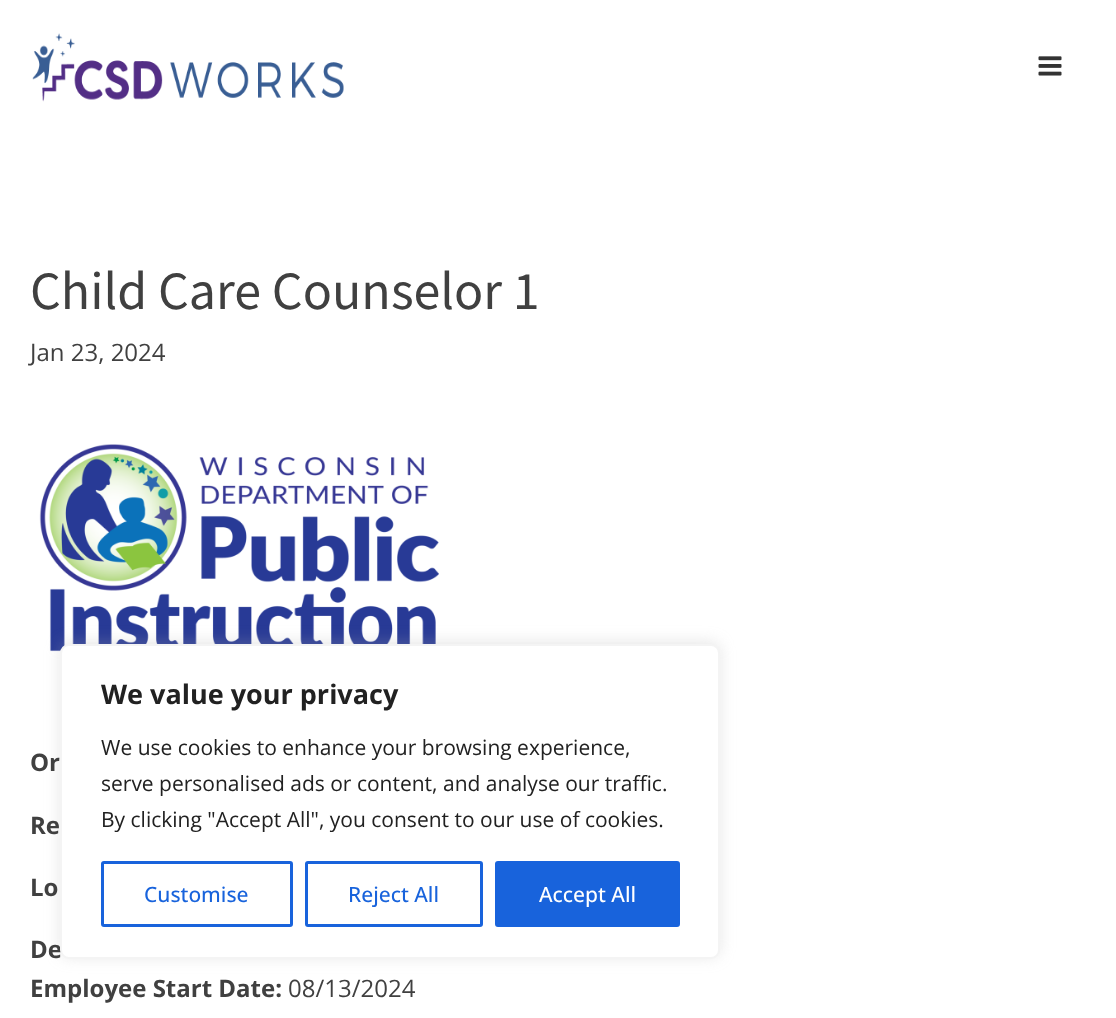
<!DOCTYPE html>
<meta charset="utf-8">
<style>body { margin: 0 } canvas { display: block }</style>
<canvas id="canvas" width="1116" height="1018"></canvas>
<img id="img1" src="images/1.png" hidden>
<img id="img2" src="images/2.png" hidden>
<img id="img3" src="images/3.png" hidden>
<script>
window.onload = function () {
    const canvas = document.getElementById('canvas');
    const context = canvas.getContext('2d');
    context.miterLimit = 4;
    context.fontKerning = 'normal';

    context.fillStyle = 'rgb(255, 255, 255)';
    context.fillRect(0, 0, 1116, 1018);
    context.drawImage(document.getElementById('img1'), 32, 33, 312, 69);
    context.drawImage(document.getElementById('img2'), 1038, 56, 24, 20);
    context.drawImage(document.getElementById('img3'), 39, 444, 400, 208);
    context.fillStyle = 'rgba(172, 171, 171, 0.3)';
    context.filter = 'blur(7.5px)';
    context.beginPath();
    context.roundRect(60, 642, 660, 315, 9);
    context.fill();
    context.filter = 'none';
    context.font = '54px Source Sans Pro';
    context.fillStyle = 'rgb(64, 64, 64)';
    context.fillText('Child Care Counselor 1', 30, 309);
    context.font = '24px Open Sans';
    context.fillText('Jan 23, 2024', 30, 361);
    context.font = 'bold 24px Open Sans';
    context.fillText('Or', 30, 771);
    context.fillText('Re', 30, 834);
    context.fillText('Lo', 30, 896);
    context.fillText('De', 30, 958);
    context.fillText('Employee Start Date:', 30, 997);
    context.font = '24px Open Sans';
    context.fillText('08/13/2024', 288, 997);
    context.fillStyle = 'rgb(255, 255, 255)';
    context.beginPath();
    context.roundRect(61, 645, 658, 313, 8);
    context.fill();
    context.strokeStyle = 'rgb(244, 244, 244)';
    context.lineWidth = 2;
    context.stroke();
    context.font = 'bold 27px Open Sans';
    context.fillStyle = 'rgb(33, 33, 33)';
    context.fillText('We value your privacy', 101, 704);
    context.font = '21px Open Sans';
    context.fillText('We use cookies to enhance your browsing experience,', 101, 755);
    context.fillText('serve personalised ads or content, and analyse our traffic.', 101, 791);
    context.fillText('By clicking "Accept All", you consent to our use of cookies.', 101, 827);
    context.beginPath();
    context.roundRect(102.5, 862.5, 189, 63, 1.5);
    context.strokeStyle = 'rgb(24, 99, 220)';
    context.lineWidth = 3;
    context.stroke();
    context.font = '500 21px Open Sans';
    context.fillStyle = 'rgb(24, 99, 220)';
    context.fillText('Customise', 144, 902);
    context.beginPath();
    context.roundRect(306.5, 862.5, 175, 63, 1.5);
    context.stroke();
    context.fillText('Reject All', 348, 902);
    context.beginPath();
    context.roundRect(496.5, 862.5, 182, 63, 1.5);
    context.fill();
    context.stroke();
    context.fillStyle = 'rgb(255, 255, 255)';
    context.fillText('Accept All', 539, 902);
};
</script>
